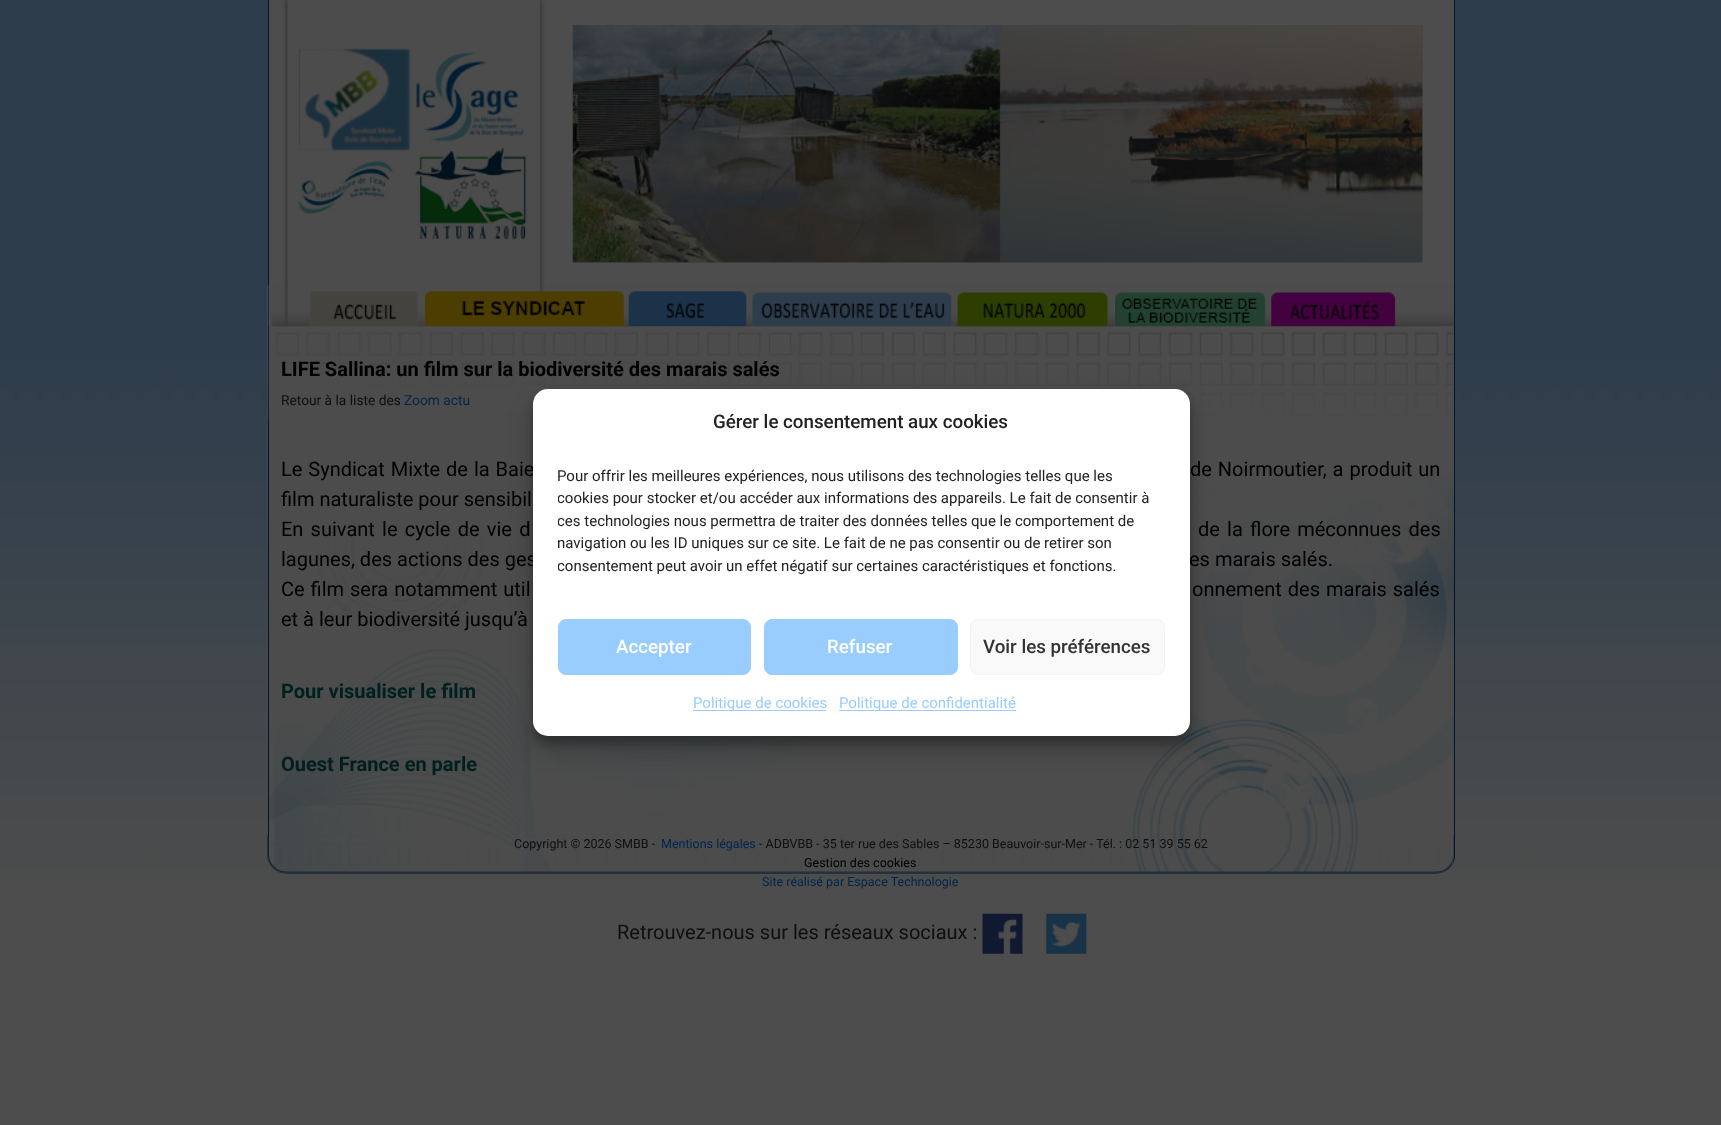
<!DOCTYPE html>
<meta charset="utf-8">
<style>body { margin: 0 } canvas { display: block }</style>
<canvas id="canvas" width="1721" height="1125"></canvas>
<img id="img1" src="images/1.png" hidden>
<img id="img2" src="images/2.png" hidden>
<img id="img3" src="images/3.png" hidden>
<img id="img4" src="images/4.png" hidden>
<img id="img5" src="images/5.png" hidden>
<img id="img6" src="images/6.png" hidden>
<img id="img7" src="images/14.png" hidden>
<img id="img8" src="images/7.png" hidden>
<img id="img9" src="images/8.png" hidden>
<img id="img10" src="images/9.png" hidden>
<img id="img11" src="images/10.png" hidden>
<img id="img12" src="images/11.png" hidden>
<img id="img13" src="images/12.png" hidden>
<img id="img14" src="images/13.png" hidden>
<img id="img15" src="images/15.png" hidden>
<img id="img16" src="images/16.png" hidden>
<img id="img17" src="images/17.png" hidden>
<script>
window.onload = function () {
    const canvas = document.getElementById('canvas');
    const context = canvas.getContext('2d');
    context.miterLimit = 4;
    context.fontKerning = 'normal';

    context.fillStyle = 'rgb(77, 77, 77)';
    context.fillRect(0, 0, 1721, 1125);
    context.drawImage(document.getElementById('img1'), 0, 0, 1721, 880);
    context.fillRect(269, 0, 1185, 285);
    context.drawImage(document.getElementById('img2'), 282, 0, 263, 285);
    context.fillStyle = 'rgb(0, 21, 41)';
    context.fillRect(1454, 0, 1, 835);
    context.fillRect(268, 0, 1, 285);
    context.drawImage(document.getElementById('img3'), 297, 45, 231, 200);
    context.fillStyle = 'rgb(69, 69, 69)';
    context.fillRect(573, 25, 850, 238);
    context.drawImage(document.getElementById('img4'), 572, 25, 851, 238);
    context.drawImage(document.getElementById('img5'), 267, 285, 1187, 550);
    context.fillStyle = 'rgb(0, 21, 41)';
    context.fillRect(268, 285, 1, 550);
    context.drawImage(document.getElementById('img6'), 268, 285, 1186, 42);
    context.drawImage(document.getElementById('img7'), 268, 326, 1186, 94);
    context.drawImage(document.getElementById('img8'), 268, 285, 153, 42);
    context.drawImage(document.getElementById('img9'), 421, 285, 208, 42);
    context.drawImage(document.getElementById('img10'), 628, 291, 125, 36);
    context.drawImage(document.getElementById('img11'), 752, 292, 206, 35);
    context.drawImage(document.getElementById('img12'), 957, 292, 158, 35);
    context.drawImage(document.getElementById('img13'), 1115, 292, 156, 35);
    context.drawImage(document.getElementById('img14'), 1271, 292, 170, 35);
    context.drawImage(document.getElementById('img15'), 267, 835, 1188, 39);
    context.drawImage(document.getElementById('img16'), 982, 913, 41, 41);
    context.drawImage(document.getElementById('img17'), 1046, 913, 41, 41);
    context.fillStyle = 'rgba(0, 0, 0, 0.23)';
    context.filter = 'blur(4px)';
    context.beginPath();
    context.roundRect(533, 396, 657, 348, 15);
    context.fill();
    context.filter = 'none';
    context.fillStyle = 'rgba(0, 0, 0, 0.19)';
    context.filter = 'blur(12.5px)';
    context.beginPath();
    context.roundRect(533, 401, 657, 348, 15);
    context.fill();
    context.filter = 'none';
    context.font = 'bold 20px Roboto';
    context.fillStyle = 'rgb(0, 0, 0)';
    context.fillText('LIFE Sallina: un film sur la biodiversité des marais salés', 281, 376);
    context.font = '13.75px Roboto';
    context.fillStyle = 'rgb(15, 15, 15)';
    context.fillText('Retour à la liste des', 281, 405);
    context.fillStyle = 'rgb(0, 37, 77)';
    context.fillText('Zoom actu', 404, 405);
    context.wordSpacing = '1px';
    context.font = '20px Roboto';
    context.fillStyle = 'rgb(0, 0, 0)';
    context.fillText('Le Syndicat Mixte de la Baie', 281, 476);
    context.fillText('de Noirmoutier, a produit un', 1190, 476);
    context.wordSpacing = '0px';
    context.fillText('film naturaliste pour sensibil', 281, 506);
    context.wordSpacing = '2.25px';
    context.fillText('En suivant le cycle de vie d', 281, 536);
    context.fillText('de la flore méconnues des', 1198, 536);
    context.wordSpacing = '0px';
    context.fillText('lagunes, des actions des ges', 281, 566);
    context.fillText('es marais salés.', 1189, 566);
    context.wordSpacing = '1px';
    context.fillText('Ce film sera notamment util', 281, 596);
    context.fillText('onnement des marais salés', 1192, 596);
    context.wordSpacing = '0px';
    context.fillText('et à leur biodiversité jusqu’à', 281, 626);
    context.font = 'bold 20px Roboto';
    context.fillStyle = 'rgb(0, 31, 31)';
    context.fillText('Pour visualiser le film', 281, 698);
    context.fillText('Ouest France en parle', 281, 771);
    context.font = '12.5px Roboto';
    context.fillStyle = 'rgb(15, 15, 15)';
    context.fillText('Copyright © 2026 SMBB -', 514, 848);
    context.fillStyle = 'rgb(0, 37, 77)';
    context.fillText('Mentions légales', 661, 848);
    context.fillStyle = 'rgb(15, 15, 15)';
    context.fillText('- ADBVBB - 35 ter rue des Sables – 85230 Beauvoir-sur-Mer - Tél. : 02 51 39 55 62', 759, 848);
    context.fillStyle = 'rgb(0, 0, 0)';
    context.fillText('Gestion des cookies', 804, 867);
    context.fillStyle = 'rgb(0, 37, 77)';
    context.fillText('Site réalisé par Espace Technologie', 762, 886);
    context.font = '20px Roboto';
    context.fillStyle = 'rgb(15, 15, 15)';
    context.fillText('Retrouvez-nous sur les réseaux sociaux :', 617, 939);
    context.fillStyle = 'rgb(255, 255, 255)';
    context.beginPath();
    context.roundRect(533, 389, 657, 347, 15);
    context.fill();
    context.font = '500 18.75px Roboto';
    context.fillStyle = 'rgb(34, 34, 34)';
    context.fillText('Gérer le consentement aux cookies', 713, 428);
    context.font = '15px Roboto';
    context.fillText('Pour offrir les meilleures expériences, nous utilisons des technologies telles que les', 557, 481);
    context.save();
    context.beginPath();
    context.rect(558, 465, 607, 119);
    context.clip();
    context.fillText('cookies pour stocker et/ou accéder aux informations des appareils. Le fait de consentir à', 557, 503);
    context.fillText('ces technologies nous permettra de traiter des données telles que le comportement de', 557, 526);
    context.fillText('navigation ou les ID uniques sur ce site. Le fait de ne pas consentir ou de retirer son', 557, 548);
    context.fillText('consentement peut avoir un effet négatif sur certaines caractéristiques et fonctions.', 557, 571);
    context.restore();
    context.fillStyle = 'rgb(153, 204, 255)';
    context.beginPath();
    context.roundRect(558.5, 619.5, 192, 55, 7.5);
    context.fill();
    context.strokeStyle = 'rgb(153, 204, 255)';
    context.stroke();
    context.font = '500 18.75px Roboto';
    context.fillStyle = 'rgb(255, 255, 255)';
    context.fillText('Accepter', 616, 653);
    context.fillStyle = 'rgb(153, 204, 255)';
    context.beginPath();
    context.roundRect(764.5, 619.5, 193, 55, 7.5);
    context.fill();
    context.stroke();
    context.fillStyle = 'rgb(255, 255, 255)';
    context.fillText('Refuser', 827, 653);
    context.fillStyle = 'rgb(249, 249, 249)';
    context.beginPath();
    context.roundRect(970.5, 619.5, 194, 55, 7.5);
    context.fill();
    context.strokeStyle = 'rgb(242, 242, 242)';
    context.stroke();
    context.fillStyle = 'rgb(51, 51, 51)';
    context.fillText('Voir les préférences', 983, 653);
    context.fillStyle = 'rgb(153, 204, 255)';
    context.fillRect(693, 710, 133, 1);
    context.font = '15px Roboto';
    context.fillText('Politique de cookies', 693, 708);
    context.fillRect(839, 710, 177, 1);
    context.fillText('Politique de confidentialité', 839, 708);
};
</script>
